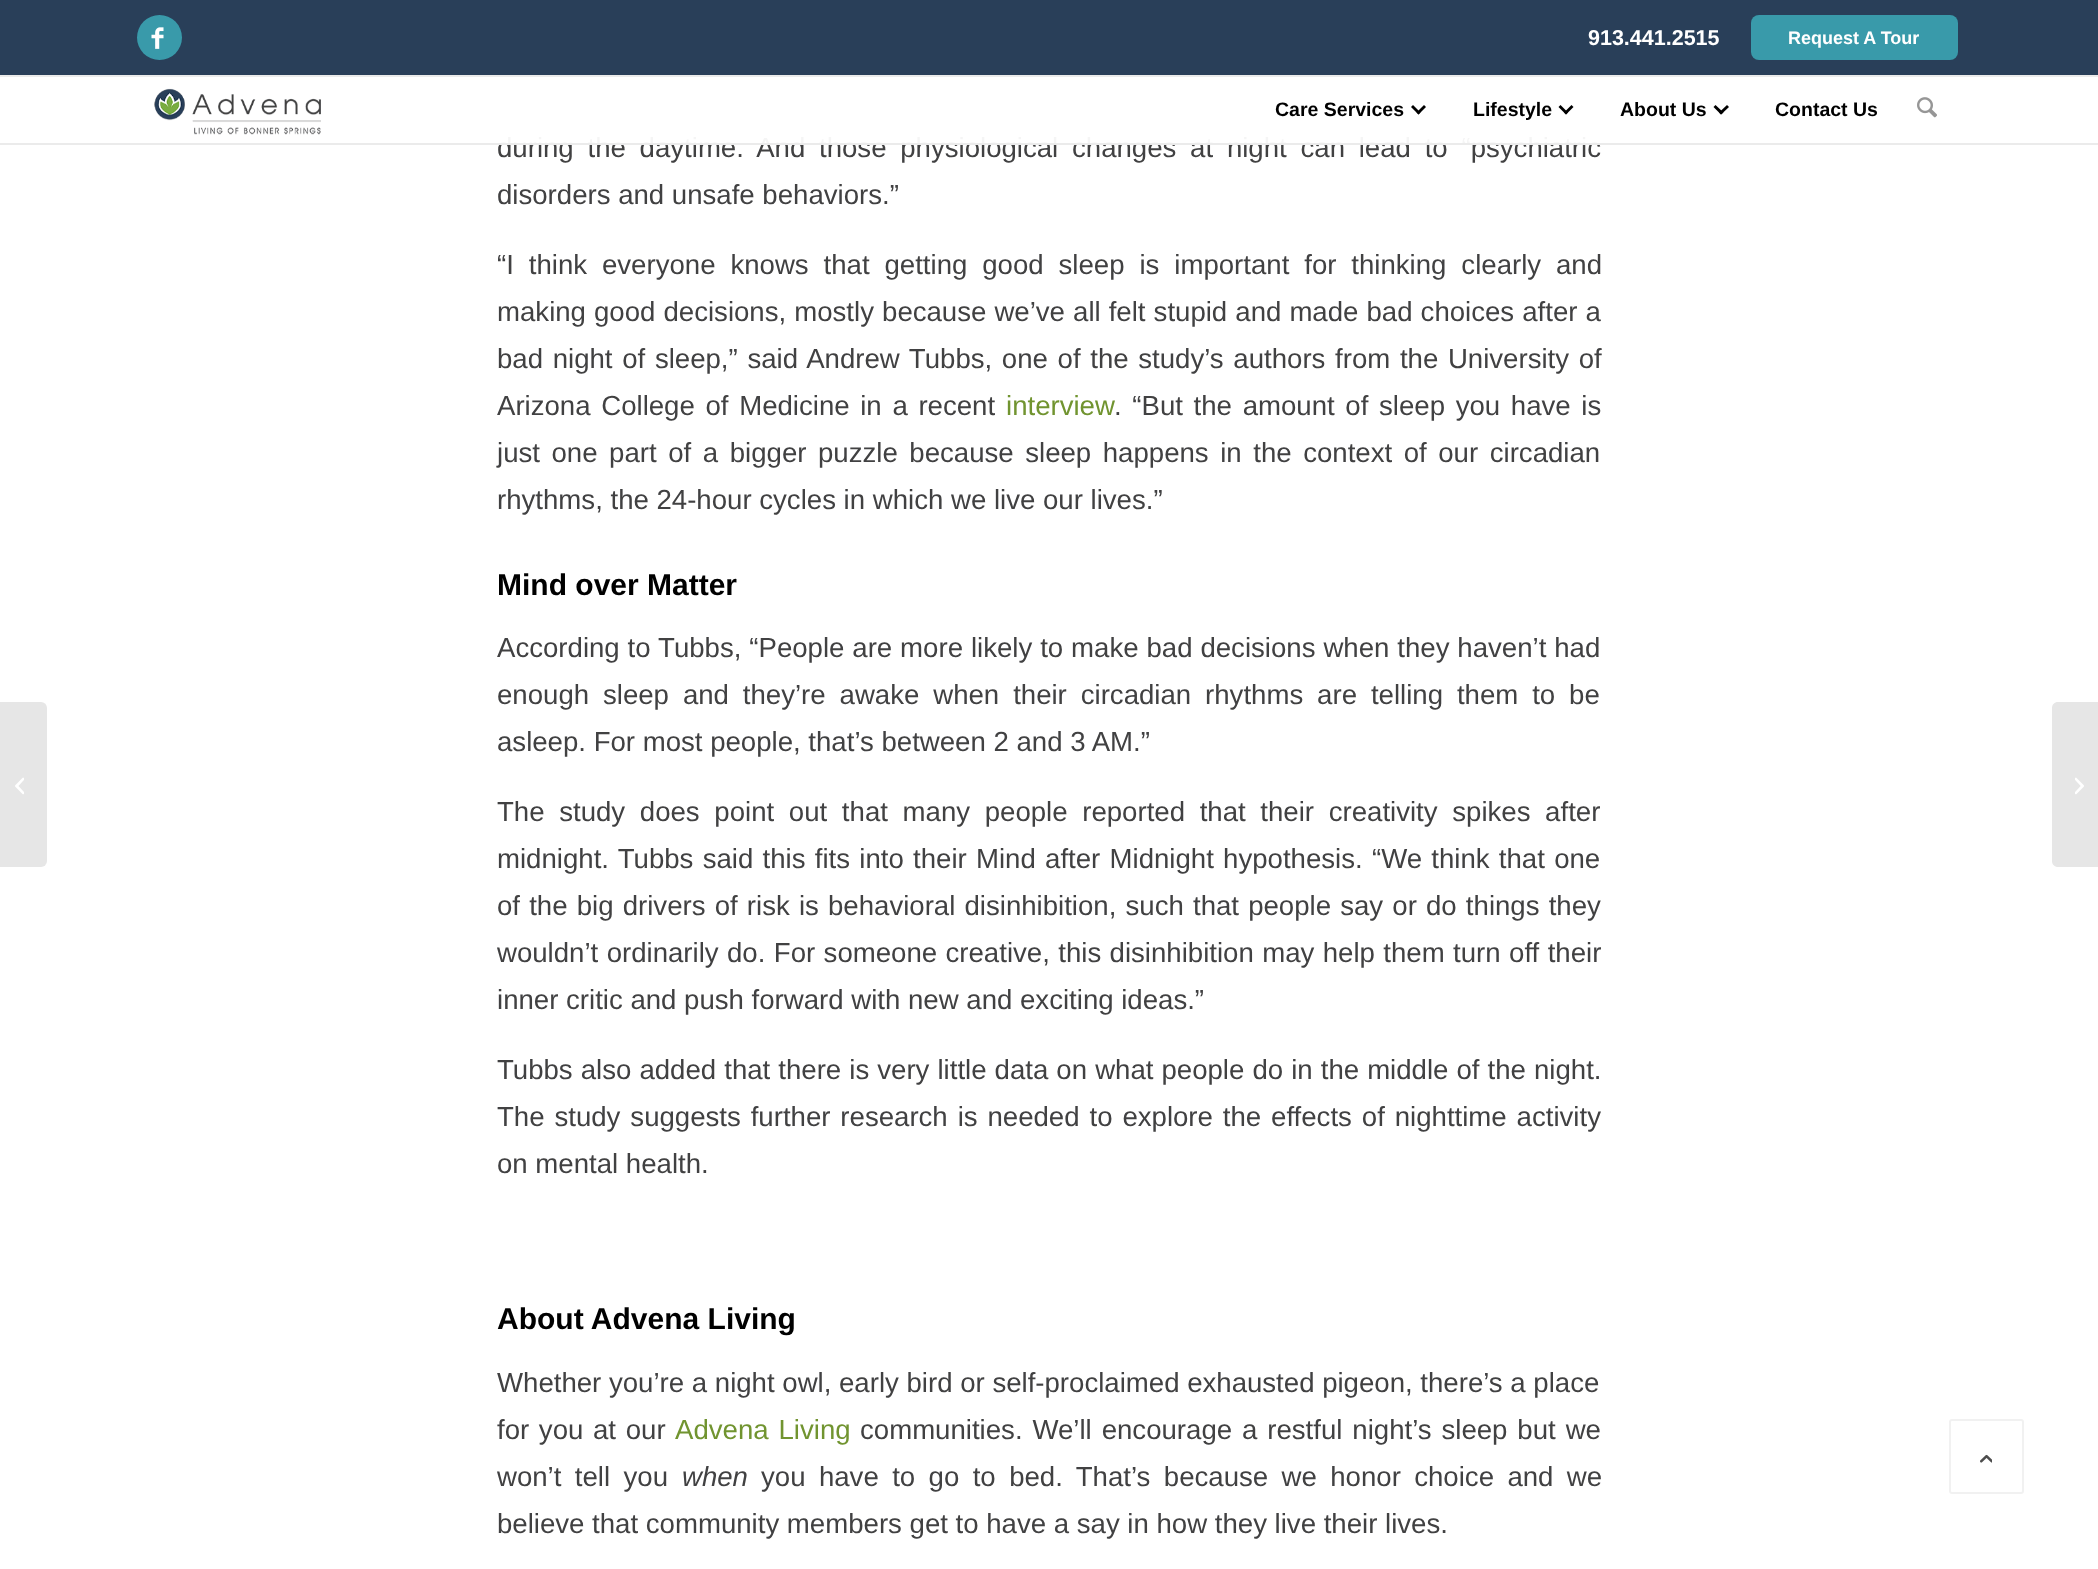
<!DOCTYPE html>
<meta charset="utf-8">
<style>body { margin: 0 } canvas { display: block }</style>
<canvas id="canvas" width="2098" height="1569"></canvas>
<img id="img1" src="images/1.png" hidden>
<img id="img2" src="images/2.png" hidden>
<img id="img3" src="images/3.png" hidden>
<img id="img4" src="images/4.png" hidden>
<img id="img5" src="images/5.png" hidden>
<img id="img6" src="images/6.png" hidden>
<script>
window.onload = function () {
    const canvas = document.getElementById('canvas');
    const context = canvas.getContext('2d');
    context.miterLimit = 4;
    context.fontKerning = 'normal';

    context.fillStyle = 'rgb(255, 255, 255)';
    context.fillRect(0, 0, 2098, 1569);
    context.fillStyle = 'rgb(41, 63, 89)';
    context.fillRect(0, 0, 2098, 75);
    context.fillStyle = 'rgb(235, 235, 235)';
    context.fillRect(0, 75, 2098, 2);
    context.fillStyle = 'rgb(57, 154, 170)';
    context.beginPath();
    context.arc(159.5, 37.5, 22.5, 0, 2 * Math.PI);
    context.fill();
    context.drawImage(document.getElementById('img1'), 151, 27, 13, 22);
    context.beginPath();
    context.roundRect(1751, 15, 207, 45, 8);
    context.fill();
    context.drawImage(document.getElementById('img2'), 154, 88, 167, 47);
    context.fillStyle = 'rgb(0, 0, 0)';
    context.beginPath();
    context.moveTo(1426, 107);
    context.lineTo(1418.5, 114.5);
    context.lineTo(1416.5, 112.5);
    context.lineTo(1424, 105);
    context.closePath();
    context.fill();
    context.beginPath();
    context.moveTo(1420.5, 112.5);
    context.lineTo(1418.5, 114.5);
    context.lineTo(1411, 107);
    context.lineTo(1413, 105);
    context.closePath();
    context.fill();
    context.beginPath();
    context.moveTo(1573.5, 107);
    context.lineTo(1566, 114.5);
    context.lineTo(1564, 112.5);
    context.lineTo(1571.5, 105);
    context.closePath();
    context.fill();
    context.beginPath();
    context.moveTo(1568, 112.5);
    context.lineTo(1566, 114.5);
    context.lineTo(1558.5, 107);
    context.lineTo(1560.5, 105);
    context.closePath();
    context.fill();
    context.beginPath();
    context.moveTo(1729, 107);
    context.lineTo(1721, 114.5);
    context.lineTo(1719, 112.5);
    context.lineTo(1727, 105);
    context.closePath();
    context.fill();
    context.beginPath();
    context.moveTo(1723.5, 112.5);
    context.lineTo(1721, 114.5);
    context.lineTo(1713.5, 107);
    context.lineTo(1715.5, 105);
    context.closePath();
    context.fill();
    context.drawImage(document.getElementById('img3'), 1917, 97, 20, 21);
    context.fillStyle = 'rgb(230, 230, 230)';
    context.beginPath();
    context.roundRect(0, 702, 47, 165, [0, 6, 6, 0]);
    context.fill();
    context.drawImage(document.getElementById('img4'), 15, 777, 9, 18);
    context.beginPath();
    context.moveTo(2058, 702);
    context.lineTo(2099, 702);
    context.lineTo(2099, 867);
    context.lineTo(2058, 867);
    context.bezierCurveTo(2054.5, 867, 2052, 864.5, 2052, 861);
    context.lineTo(2052, 708);
    context.bezierCurveTo(2052, 704.5, 2054.5, 702, 2058, 702);
    context.closePath();
    context.fill();
    context.drawImage(document.getElementById('img5'), 2075, 777, 9, 18);
    context.beginPath();
    context.roundRect(1950, 1420, 73, 73, 2);
    context.strokeStyle = 'rgb(241, 241, 241)';
    context.lineWidth = 2;
    context.stroke();
    context.drawImage(document.getElementById('img6'), 1980, 1454, 12, 9);
    context.font = 'bold 21.5px Liberation Sans';
    context.fillStyle = 'rgb(255, 255, 255)';
    context.fillText('913.441.2515', 1588, 45);
    context.font = 'bold 18px Liberation Sans';
    context.fillText('Request A Tour', 1788, 44);
    context.font = 'bold 19.5px Liberation Sans';
    context.fillStyle = 'rgb(0, 0, 0)';
    context.fillText('Care Services', 1275, 116);
    context.fillText('Lifestyle', 1473, 116);
    context.fillText('About Us', 1620, 116);
    context.fillText('Contact Us', 1775, 116);
    context.wordSpacing = '6.1px';
    context.font = '27.6px Liberation Sans';
    context.fillStyle = 'rgb(65, 65, 66)';
    context.fillText('during the daytime. And those physiological changes at night can lead to “psychiatric', 497, 157);
    context.fillStyle = 'rgb(235, 235, 235)';
    context.fillRect(0, 143, 2098, 2);
    context.fillStyle = 'rgba(255, 255, 255, 0.95)';
    context.fillRect(501, 137, 1097, 6);
    context.wordSpacing = '0px';
    context.fillStyle = 'rgb(65, 65, 66)';
    context.fillText('disorders and unsafe behaviors.”', 497, 204);
    context.wordSpacing = '7.25px';
    context.fillText('“I think everyone knows that getting good sleep is important for thinking clearly and', 497, 274);
    context.wordSpacing = '0.4px';
    context.fillText('making good decisions, mostly because we’ve all felt stupid and made bad choices after a', 497, 321);
    context.wordSpacing = '2px';
    context.fillText('bad night of sleep,” said Andrew Tubbs, one of the study’s authors from the University of', 497, 368);
    context.wordSpacing = '3px';
    context.fillText('Arizona College of Medicine in a recent', 497, 415);
    context.wordSpacing = '0px';
    context.fillStyle = 'rgb(113, 148, 48)';
    context.fillText('interview', 1006, 415);
    context.wordSpacing = '3px';
    context.fillStyle = 'rgb(65, 65, 66)';
    context.fillText('. “But the amount of sleep you have is', 1114, 415);
    context.wordSpacing = '3.9px';
    context.fillText('just one part of a bigger puzzle because sleep happens in the context of our circadian', 497, 462);
    context.wordSpacing = '0px';
    context.fillText('rhythms, the 24-hour cycles in which we live our lives.”', 497, 509);
    context.font = 'bold 30px Liberation Sans';
    context.fillStyle = 'rgb(0, 0, 0)';
    context.fillText('Mind over Matter', 497, 595);
    context.wordSpacing = '0.25px';
    context.font = '27.6px Liberation Sans';
    context.fillStyle = 'rgb(65, 65, 66)';
    context.fillText('According to Tubbs, “People are more likely to make bad decisions when they haven’t had', 497, 657);
    context.wordSpacing = '6.25px';
    context.fillText('enough sleep and they’re awake when their circadian rhythms are telling them to be', 497, 704);
    context.wordSpacing = '0px';
    context.fillText('asleep. For most people, that’s between 2 and 3 AM.”', 497, 751);
    context.wordSpacing = '7px';
    context.fillText('The study does point out that many people reported that their creativity spikes after', 497, 821);
    context.wordSpacing = '1.6px';
    context.fillText('midnight. Tubbs said this fits into their Mind after Midnight hypothesis. “We think that one', 497, 868);
    context.wordSpacing = '1.5px';
    context.fillText('of the big drivers of risk is behavioral disinhibition, such that people say or do things they', 497, 915);
    context.wordSpacing = '0.75px';
    context.fillText('wouldn’t ordinarily do. For someone creative, this disinhibition may help them turn off their', 497, 962);
    context.wordSpacing = '0px';
    context.fillText('inner critic and push forward with new and exciting ideas.”', 497, 1009);
    context.wordSpacing = '0.4px';
    context.fillText('Tubbs also added that there is very little data on what people do in the middle of the night.', 497, 1079);
    context.wordSpacing = '2.25px';
    context.fillText('The study suggests further research is needed to explore the effects of nighttime activity', 497, 1126);
    context.wordSpacing = '0px';
    context.fillText('on mental health.', 497, 1173);
    context.font = 'bold 30px Liberation Sans';
    context.fillStyle = 'rgb(0, 0, 0)';
    context.fillText('About Advena Living', 497, 1329);
    context.font = '27.6px Liberation Sans';
    context.fillStyle = 'rgb(65, 65, 66)';
    context.fillText('Whether you’re a night owl, early bird or self-proclaimed exhausted pigeon, there’s a place', 497, 1392);
    context.wordSpacing = '2px';
    context.fillText('for you at our', 497, 1439);
    context.wordSpacing = '2.25px';
    context.fillStyle = 'rgb(113, 148, 48)';
    context.fillText('Advena Living', 675, 1439);
    context.fillStyle = 'rgb(65, 65, 66)';
    context.fillText('communities. We’ll encourage a restful night’s sleep but we', 860, 1439);
    context.wordSpacing = '5.75px';
    context.fillText('won’t tell you', 497, 1486);
    context.wordSpacing = '0px';
    context.font = 'italic 27.6px Liberation Sans';
    context.fillText('when', 682, 1486);
    context.wordSpacing = '5.75px';
    context.font = '27.6px Liberation Sans';
    context.fillText('you have to go to bed. That’s because we honor choice and we', 761, 1486);
    context.wordSpacing = '0px';
    context.fillText('believe that community members get to have a say in how they live their lives.', 497, 1533);
};
</script>
